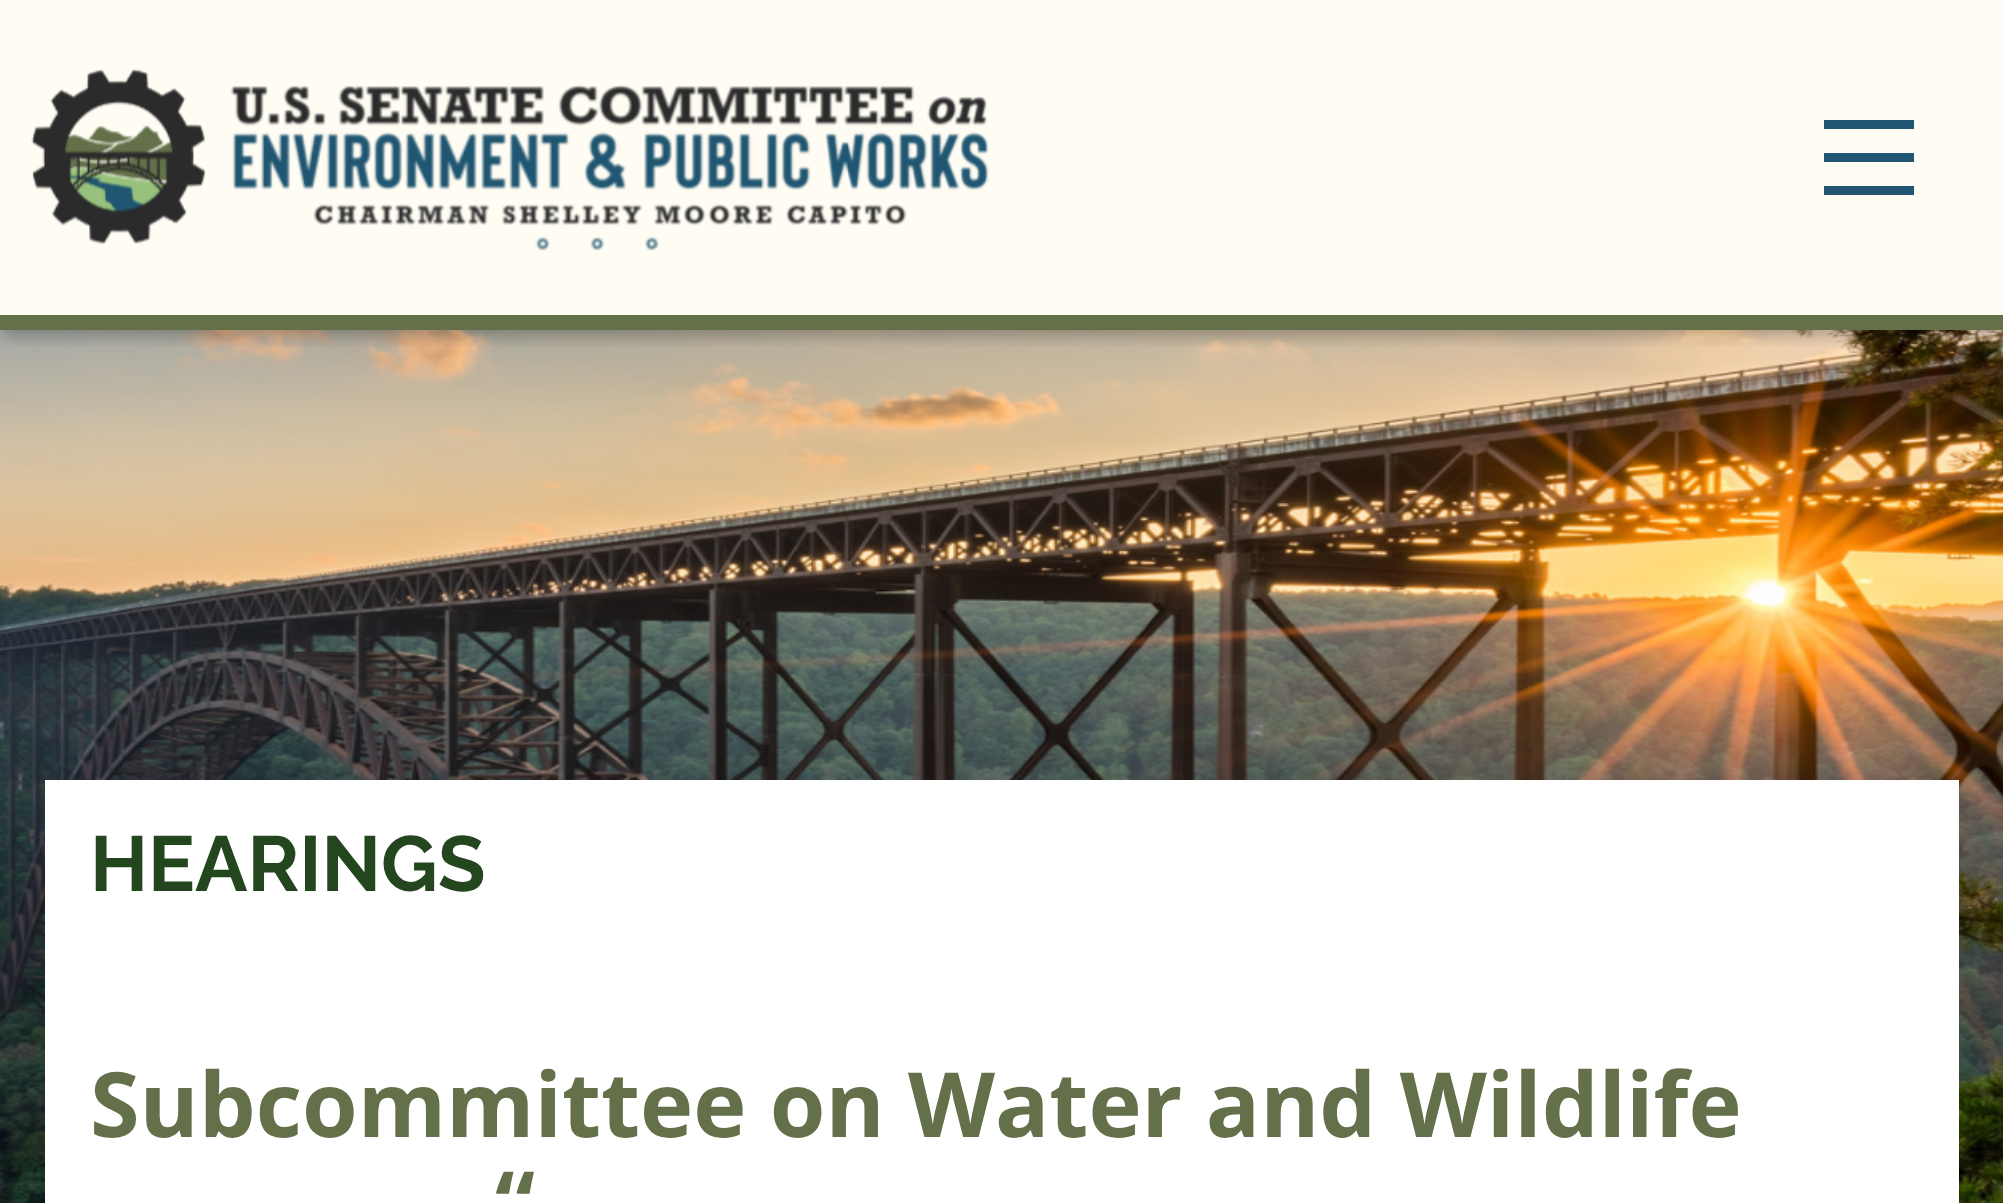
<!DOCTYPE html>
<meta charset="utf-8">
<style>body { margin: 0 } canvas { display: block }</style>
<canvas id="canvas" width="2003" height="1203"></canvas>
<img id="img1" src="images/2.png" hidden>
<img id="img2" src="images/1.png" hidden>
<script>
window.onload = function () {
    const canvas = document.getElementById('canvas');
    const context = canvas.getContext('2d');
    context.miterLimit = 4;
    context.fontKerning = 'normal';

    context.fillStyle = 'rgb(255, 252, 243)';
    context.fillRect(0, 0, 2003, 1203);
    context.drawImage(document.getElementById('img1'), 0, 330, 2003, 873);
    context.save();
    context.beginPath();
    context.rect(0, 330, 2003, 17);
    context.clip();
    context.fillStyle = 'rgba(0, 0, 0, 0.25)';
    context.filter = 'blur(7.5px)';
    context.beginPath();
    context.rect(3, 6, 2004, 330);
    context.fill();
    context.filter = 'none';
    context.restore();
    context.fillStyle = 'rgb(100, 112, 73)';
    context.fillRect(0, 315, 2003, 15);
    context.drawImage(document.getElementById('img2'), 31, 68, 958, 183);
    context.fillStyle = 'rgb(32, 86, 113)';
    context.fillRect(1824, 120, 90, 9);
    context.fillRect(1824, 153, 90, 9);
    context.fillRect(1824, 186, 90, 9);
    context.fillStyle = 'rgb(255, 255, 255)';
    context.fillRect(45, 780, 1914, 423);
    context.font = 'bold 78px Raleway';
    context.fillStyle = 'rgb(36, 70, 30)';
    context.fillText('HEARINGS', 90, 891);
    context.font = 'bold 90px Open Sans';
    context.fillStyle = 'rgb(100, 112, 73)';
    context.fillText('Subcommittee on Water and Wildlife', 90, 1137);
    context.fillText('“', 495, 1236);
};
</script>
